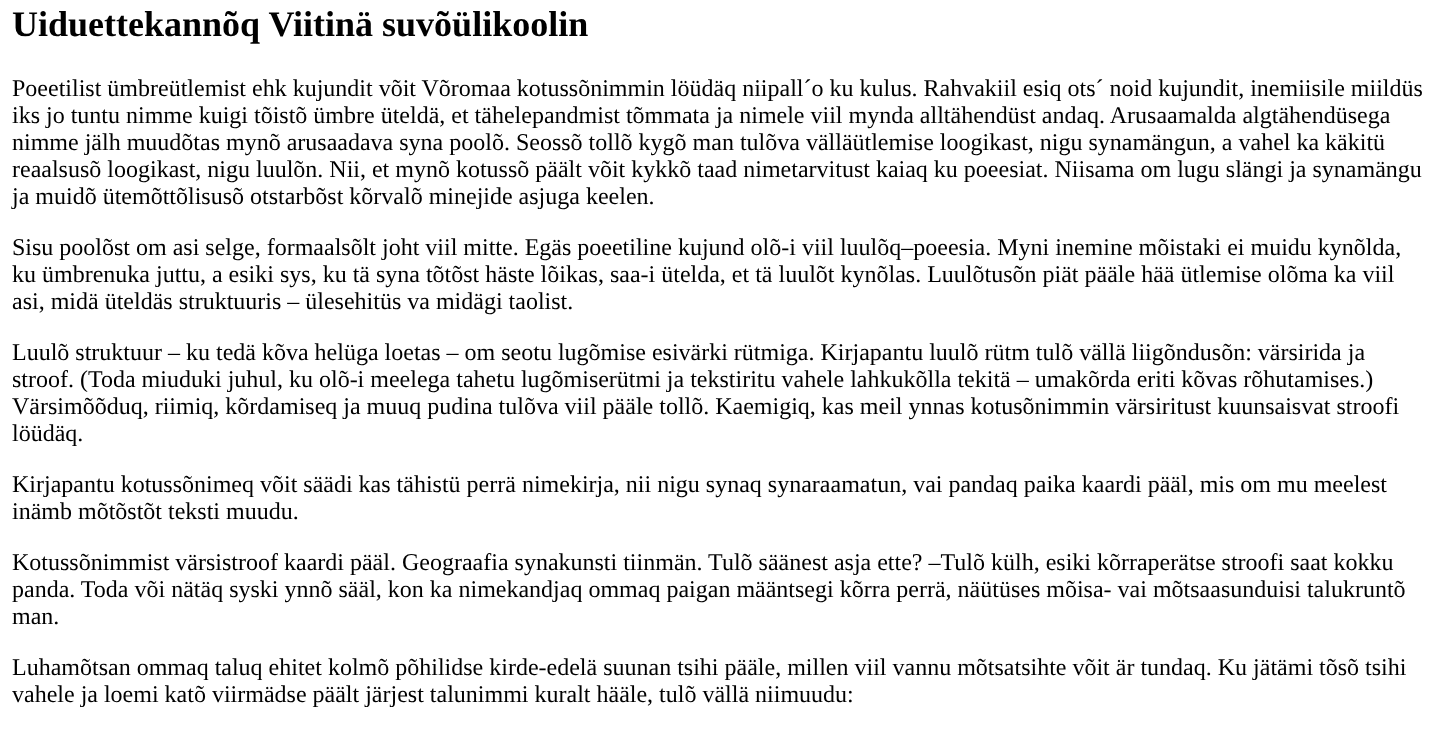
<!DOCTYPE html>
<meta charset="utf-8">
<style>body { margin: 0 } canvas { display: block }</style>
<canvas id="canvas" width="1443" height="730"></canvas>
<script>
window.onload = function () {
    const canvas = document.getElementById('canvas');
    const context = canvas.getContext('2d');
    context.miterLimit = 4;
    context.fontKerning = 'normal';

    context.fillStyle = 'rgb(255, 255, 255)';
    context.fillRect(0, 0, 1443, 730);
    context.font = 'bold 36px Liberation Serif';
    context.fillStyle = 'rgb(0, 0, 0)';
    context.fillText('Uiduettekannõq Viitinä suvõülikoolin', 12, 36);
    context.font = '24px Liberation Serif';
    context.fillText('Poeetilist ümbreütlemist ehk kujundit võit Võromaa kotussõnimmin löüdäq niipall´o ku kulus. Rahvakiil esiq ots´ noid kujundit, inemiisile miildüs', 12, 96);
    context.fillText('iks jo tuntu nimme kuigi tõistõ ümbre üteldä, et tähelepandmist tõmmata ja nimele viil mynda alltähendüst andaq. Arusaamalda algtähendüsega', 12, 123);
    context.fillText('nimme jälh muudõtas mynõ arusaadava syna poolõ. Seossõ tollõ kygõ man tulõva välläütlemise loogikast, nigu synamängun, a vahel ka käkitü', 12, 150);
    context.fillText('reaalsusõ loogikast, nigu luulõn. Nii, et mynõ kotussõ päält võit kykkõ taad nimetarvitust kaiaq ku poeesiat. Niisama om lugu slängi ja synamängu', 12, 177);
    context.fillText('ja muidõ ütemõttõlisusõ otstarbõst kõrvalõ minejide asjuga keelen.', 12, 204);
    context.fillText('Sisu poolõst om asi selge, formaalsõlt joht viil mitte. Egäs poeetiline kujund olõ-i viil luulõq–poeesia. Myni inemine mõistaki ei muidu kynõlda,', 12, 255);
    context.fillText('ku ümbrenuka juttu, a esiki sys, ku tä syna tõtõst häste lõikas, saa-i ütelda, et tä luulõt kynõlas. Luulõtusõn piät pääle hää ütlemise olõma ka viil', 12, 282);
    context.fillText('asi, midä üteldäs struktuuris – ülesehitüs va midägi taolist.', 12, 309);
    context.fillText('Luulõ struktuur – ku tedä kõva helüga loetas – om seotu lugõmise esivärki rütmiga. Kirjapantu luulõ rütm tulõ vällä liigõndusõn: värsirida ja', 12, 360);
    context.fillText('stroof. (Toda miuduki juhul, ku olõ-i meelega tahetu lugõmiserütmi ja tekstiritu vahele lahkukõlla tekitä – umakõrda eriti kõvas rõhutamises.)', 12, 387);
    context.fillText('Värsimõõduq, riimiq, kõrdamiseq ja muuq pudina tulõva viil pääle tollõ. Kaemigiq, kas meil ynnas kotusõnimmin värsiritust kuunsaisvat stroofi', 12, 414);
    context.fillText('löüdäq.', 12, 441);
    context.fillText('Kirjapantu kotussõnimeq võit säädi kas tähistü perrä nimekirja, nii nigu synaq synaraamatun, vai pandaq paika kaardi pääl, mis om mu meelest', 12, 492);
    context.fillText('inämb mõtõstõt teksti muudu.', 12, 519);
    context.fillText('Kotussõnimmist värsistroof kaardi pääl. Geograafia synakunsti tiinmän. Tulõ säänest asja ette? –Tulõ külh, esiki kõrraperätse stroofi saat kokku', 12, 570);
    context.fillText('panda. Toda või nätäq syski ynnõ sääl, kon ka nimekandjaq ommaq paigan määntsegi kõrra perrä, näütüses mõisa- vai mõtsaasunduisi talukruntõ', 12, 597);
    context.fillText('man.', 12, 624);
    context.fillText('Luhamõtsan ommaq taluq ehitet kolmõ põhilidse kirde-edelä suunan tsihi pääle, millen viil vannu mõtsatsihte võit är tundaq. Ku jätämi tõsõ tsihi', 12, 675);
    context.fillText('vahele ja loemi katõ viirmädse päält järjest talunimmi kuralt hääle, tulõ vällä niimuudu:', 12, 702);
};
</script>
